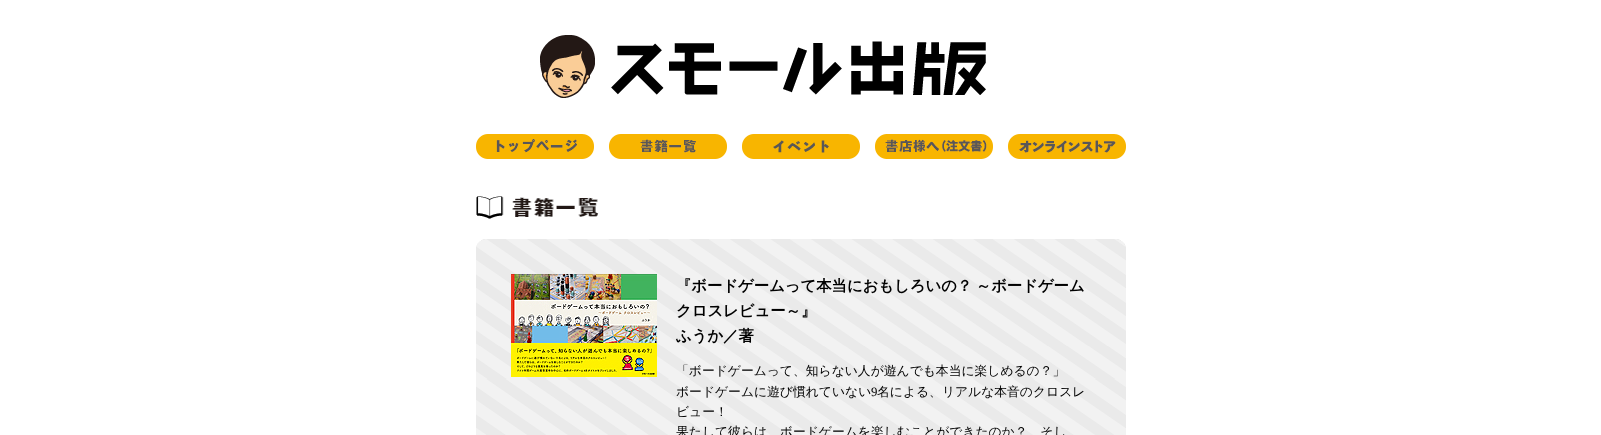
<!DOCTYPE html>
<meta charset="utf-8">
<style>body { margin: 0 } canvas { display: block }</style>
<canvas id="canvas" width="1601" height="435"></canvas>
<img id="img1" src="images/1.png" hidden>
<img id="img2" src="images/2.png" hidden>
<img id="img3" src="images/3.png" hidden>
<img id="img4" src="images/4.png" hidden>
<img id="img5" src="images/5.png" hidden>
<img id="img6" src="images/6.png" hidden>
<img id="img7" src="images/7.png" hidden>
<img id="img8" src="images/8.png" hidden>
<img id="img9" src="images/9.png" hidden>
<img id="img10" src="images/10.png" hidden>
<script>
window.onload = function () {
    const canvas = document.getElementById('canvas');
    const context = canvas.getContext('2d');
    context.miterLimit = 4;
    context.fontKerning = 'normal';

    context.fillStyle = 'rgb(255, 255, 255)';
    context.fillRect(0, 0, 1601, 435);
    context.drawImage(document.getElementById('img1'), 540, 35, 446, 63);
    context.drawImage(document.getElementById('img2'), 476, 134, 118, 25);
    context.drawImage(document.getElementById('img3'), 609, 134, 118, 25);
    context.drawImage(document.getElementById('img4'), 742, 134, 118, 25);
    context.drawImage(document.getElementById('img5'), 875, 134, 118, 25);
    context.drawImage(document.getElementById('img6'), 1008, 134, 118, 25);
    context.drawImage(document.getElementById('img7'), 476, 196, 123, 23);
    context.drawImage(document.getElementById('img8'), 476, 239, 650, 196);
    context.drawImage(document.getElementById('img9'), 476, 239, 650, 7);
    context.drawImage(document.getElementById('img10'), 511, 274, 146, 103);
    context.wordSpacing = '-1px';
    context.font = 'bold 15.35px WenQuanYi Zen Hei';
    context.fillStyle = 'rgb(0, 0, 0)';
    context.fillText('『ボードゲームって本当におもしろいの？ ～ボードゲーム', 676, 291);
    context.wordSpacing = '0px';
    context.fillText('クロスレビュー～』', 676, 316);
    context.fillText('ふうか／著', 676, 341);
    context.font = '500 12.8px WenQuanYi Zen Hei';
    context.fillText('「ボードゲームって、知らない人が遊んでも本当に楽しめるの？」', 676, 375);
    context.fillText('ボードゲームに遊び慣れていない', 676, 396);
    context.font = '12.8px Liberation Serif';
    context.fillText('9', 871, 396);
    context.font = '500 12.8px WenQuanYi Zen Hei';
    context.fillText('名による、リアルな本音のクロスレ', 877, 396);
    context.fillText('ビュー！', 676, 416);
    context.fillText('果たして彼らは、ボードゲームを楽しむことができたのか？　そし', 676, 436);
};
</script>
